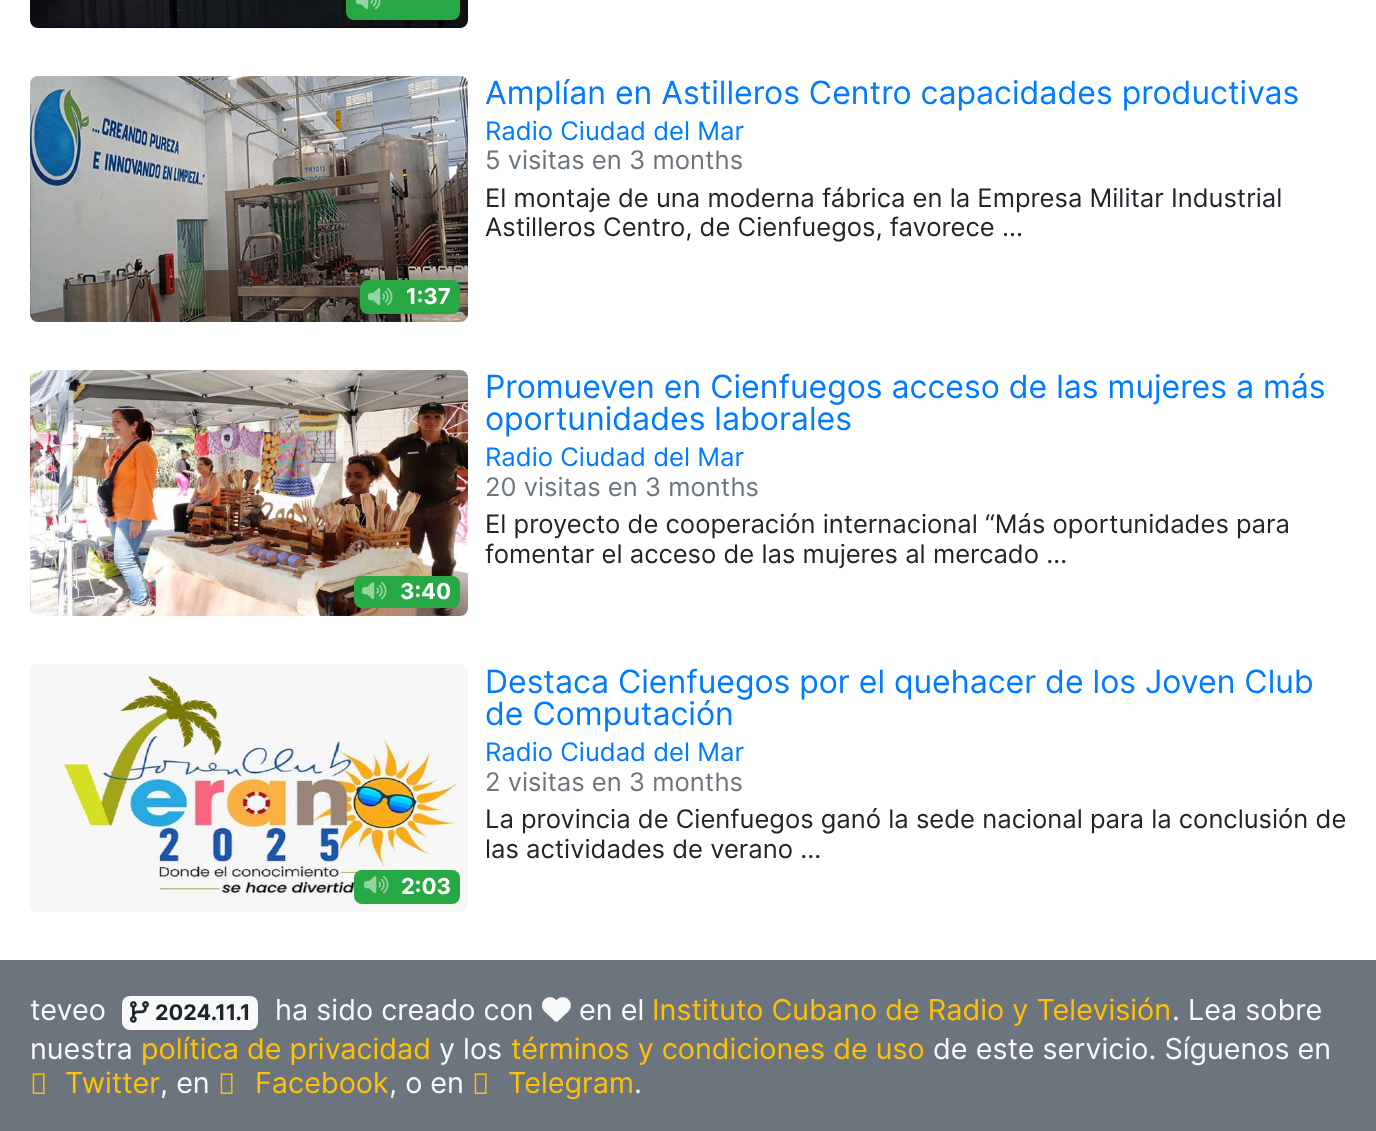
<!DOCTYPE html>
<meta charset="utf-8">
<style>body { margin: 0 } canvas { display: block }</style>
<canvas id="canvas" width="1376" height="1131"></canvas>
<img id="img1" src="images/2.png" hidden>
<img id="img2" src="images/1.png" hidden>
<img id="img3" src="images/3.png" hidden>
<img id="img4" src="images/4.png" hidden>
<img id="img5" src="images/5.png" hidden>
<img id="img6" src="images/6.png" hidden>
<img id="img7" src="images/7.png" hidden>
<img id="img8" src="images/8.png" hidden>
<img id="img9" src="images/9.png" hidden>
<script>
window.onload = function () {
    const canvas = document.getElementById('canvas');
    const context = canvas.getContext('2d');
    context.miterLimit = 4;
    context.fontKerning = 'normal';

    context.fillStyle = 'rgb(255, 255, 255)';
    context.fillRect(0, 0, 1376, 1131);
    context.drawImage(document.getElementById('img1'), 30, 0, 438, 28);
    context.fillStyle = 'rgb(40, 167, 69)';
    context.beginPath();
    context.roundRect(346, -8, 114, 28, 8);
    context.fill();
    context.drawImage(document.getElementById('img2'), 356, 0, 25, 10);
    context.drawImage(document.getElementById('img3'), 30, 76, 438, 246);
    context.beginPath();
    context.roundRect(360, 280, 100, 34, 8);
    context.fill();
    context.drawImage(document.getElementById('img4'), 368, 288, 25, 18);
    context.drawImage(document.getElementById('img5'), 30, 370, 438, 246);
    context.beginPath();
    context.roundRect(354, 576, 106, 32, 8);
    context.fill();
    context.drawImage(document.getElementById('img4'), 362, 582, 25, 18);
    context.drawImage(document.getElementById('img6'), 30, 664, 438, 248);
    context.beginPath();
    context.roundRect(354, 870, 106, 34, 8);
    context.fill();
    context.drawImage(document.getElementById('img4'), 364, 876, 25, 18);
    context.fillStyle = 'rgb(108, 117, 125)';
    context.fillRect(0, 960, 1376, 171);
    context.fillStyle = 'rgb(248, 249, 250)';
    context.beginPath();
    context.roundRect(122, 996, 136, 34, 8);
    context.fill();
    context.drawImage(document.getElementById('img7'), 130, 1001, 19, 22);
    context.drawImage(document.getElementById('img8'), 542, 997, 29, 25);
    context.drawImage(document.getElementById('img9'), 32, 1073, 13, 21);
    context.drawImage(document.getElementById('img9'), 220, 1073, 13, 21);
    context.drawImage(document.getElementById('img9'), 474, 1073, 13, 21);
    context.font = '32px Inter';
    context.fillStyle = 'rgb(0, 123, 255)';
    context.fillText('Amplían en Astilleros Centro capacidades productivas', 485, 104);
    context.font = '25.6px Inter';
    context.fillText('Radio Ciudad del Mar', 485, 140);
    context.fillStyle = 'rgb(108, 117, 125)';
    context.fillText('5 visitas en 3 months', 485, 169);
    context.fillStyle = 'rgb(33, 37, 41)';
    context.fillText('El montaje de una moderna fábrica en la Empresa Militar Industrial', 485, 207);
    context.fillText('Astilleros Centro, de Cienfuegos, favorece …', 485, 236);
    context.font = 'bold 22px Inter';
    context.fillStyle = 'rgb(255, 255, 255)';
    context.fillText('1:37', 406, 304);
    context.font = '32px Inter';
    context.fillStyle = 'rgb(0, 123, 255)';
    context.fillText('Promueven en Cienfuegos acceso de las mujeres a más', 485, 398);
    context.fillText('oportunidades laborales', 485, 430);
    context.font = '25.6px Inter';
    context.fillText('Radio Ciudad del Mar', 485, 466);
    context.fillStyle = 'rgb(108, 117, 125)';
    context.fillText('20 visitas en 3 months', 485, 496);
    context.fillStyle = 'rgb(33, 37, 41)';
    context.fillText('El proyecto de cooperación internacional “Más oportunidades para', 485, 533);
    context.fillText('fomentar el acceso de las mujeres al mercado …', 485, 563);
    context.font = 'bold 22px Inter';
    context.fillStyle = 'rgb(255, 255, 255)';
    context.fillText('3:40', 400, 599);
    context.font = '32px Inter';
    context.fillStyle = 'rgb(0, 123, 255)';
    context.fillText('Destaca Cienfuegos por el quehacer de los Joven Club', 485, 693);
    context.fillText('de Computación', 485, 725);
    context.font = '25.6px Inter';
    context.fillText('Radio Ciudad del Mar', 485, 761);
    context.fillStyle = 'rgb(108, 117, 125)';
    context.fillText('2 visitas en 3 months', 485, 791);
    context.fillStyle = 'rgb(33, 37, 41)';
    context.fillText('La provincia de Cienfuegos ganó la sede nacional para la conclusión de', 485, 828);
    context.fillText('las actividades de verano …', 485, 858);
    context.font = 'bold 22px Inter';
    context.fillStyle = 'rgb(255, 255, 255)';
    context.fillText('2:03', 401, 894);
    context.font = '28.75px Inter';
    context.fillStyle = 'rgb(248, 249, 250)';
    context.fillText('teveo', 30, 1020);
    context.font = 'bold 21.5px Inter';
    context.fillStyle = 'rgb(33, 37, 41)';
    context.fillText('2024.11.1', 155, 1020);
    context.font = '28.75px Inter';
    context.fillStyle = 'rgb(248, 249, 250)';
    context.fillText('ha sido creado con', 275, 1020);
    context.fillText('en el', 579, 1020);
    context.fillStyle = 'rgb(255, 193, 7)';
    context.fillText('Instituto Cubano de Radio y Televisión', 652, 1020);
    context.fillStyle = 'rgb(248, 249, 250)';
    context.fillText('. Lea sobre', 1172, 1020);
    context.fillText('nuestra', 30, 1059);
    context.fillStyle = 'rgb(255, 193, 7)';
    context.fillText('política de privacidad', 141, 1059);
    context.fillStyle = 'rgb(248, 249, 250)';
    context.fillText('y los', 439, 1059);
    context.fillStyle = 'rgb(255, 193, 7)';
    context.fillText('términos y condiciones de uso', 511, 1059);
    context.fillStyle = 'rgb(248, 249, 250)';
    context.fillText('de este servicio. Síguenos en', 933, 1059);
    context.fillStyle = 'rgb(255, 193, 7)';
    context.fillText('Twitter', 65, 1093);
    context.fillStyle = 'rgb(248, 249, 250)';
    context.fillText(', en', 160, 1093);
    context.fillStyle = 'rgb(255, 193, 7)';
    context.fillText('Facebook', 255, 1093);
    context.fillStyle = 'rgb(248, 249, 250)';
    context.fillText(', o en', 389, 1093);
    context.fillStyle = 'rgb(255, 193, 7)';
    context.fillText('Telegram', 508, 1093);
    context.fillStyle = 'rgb(248, 249, 250)';
    context.fillText('.', 634, 1093);
};
</script>
